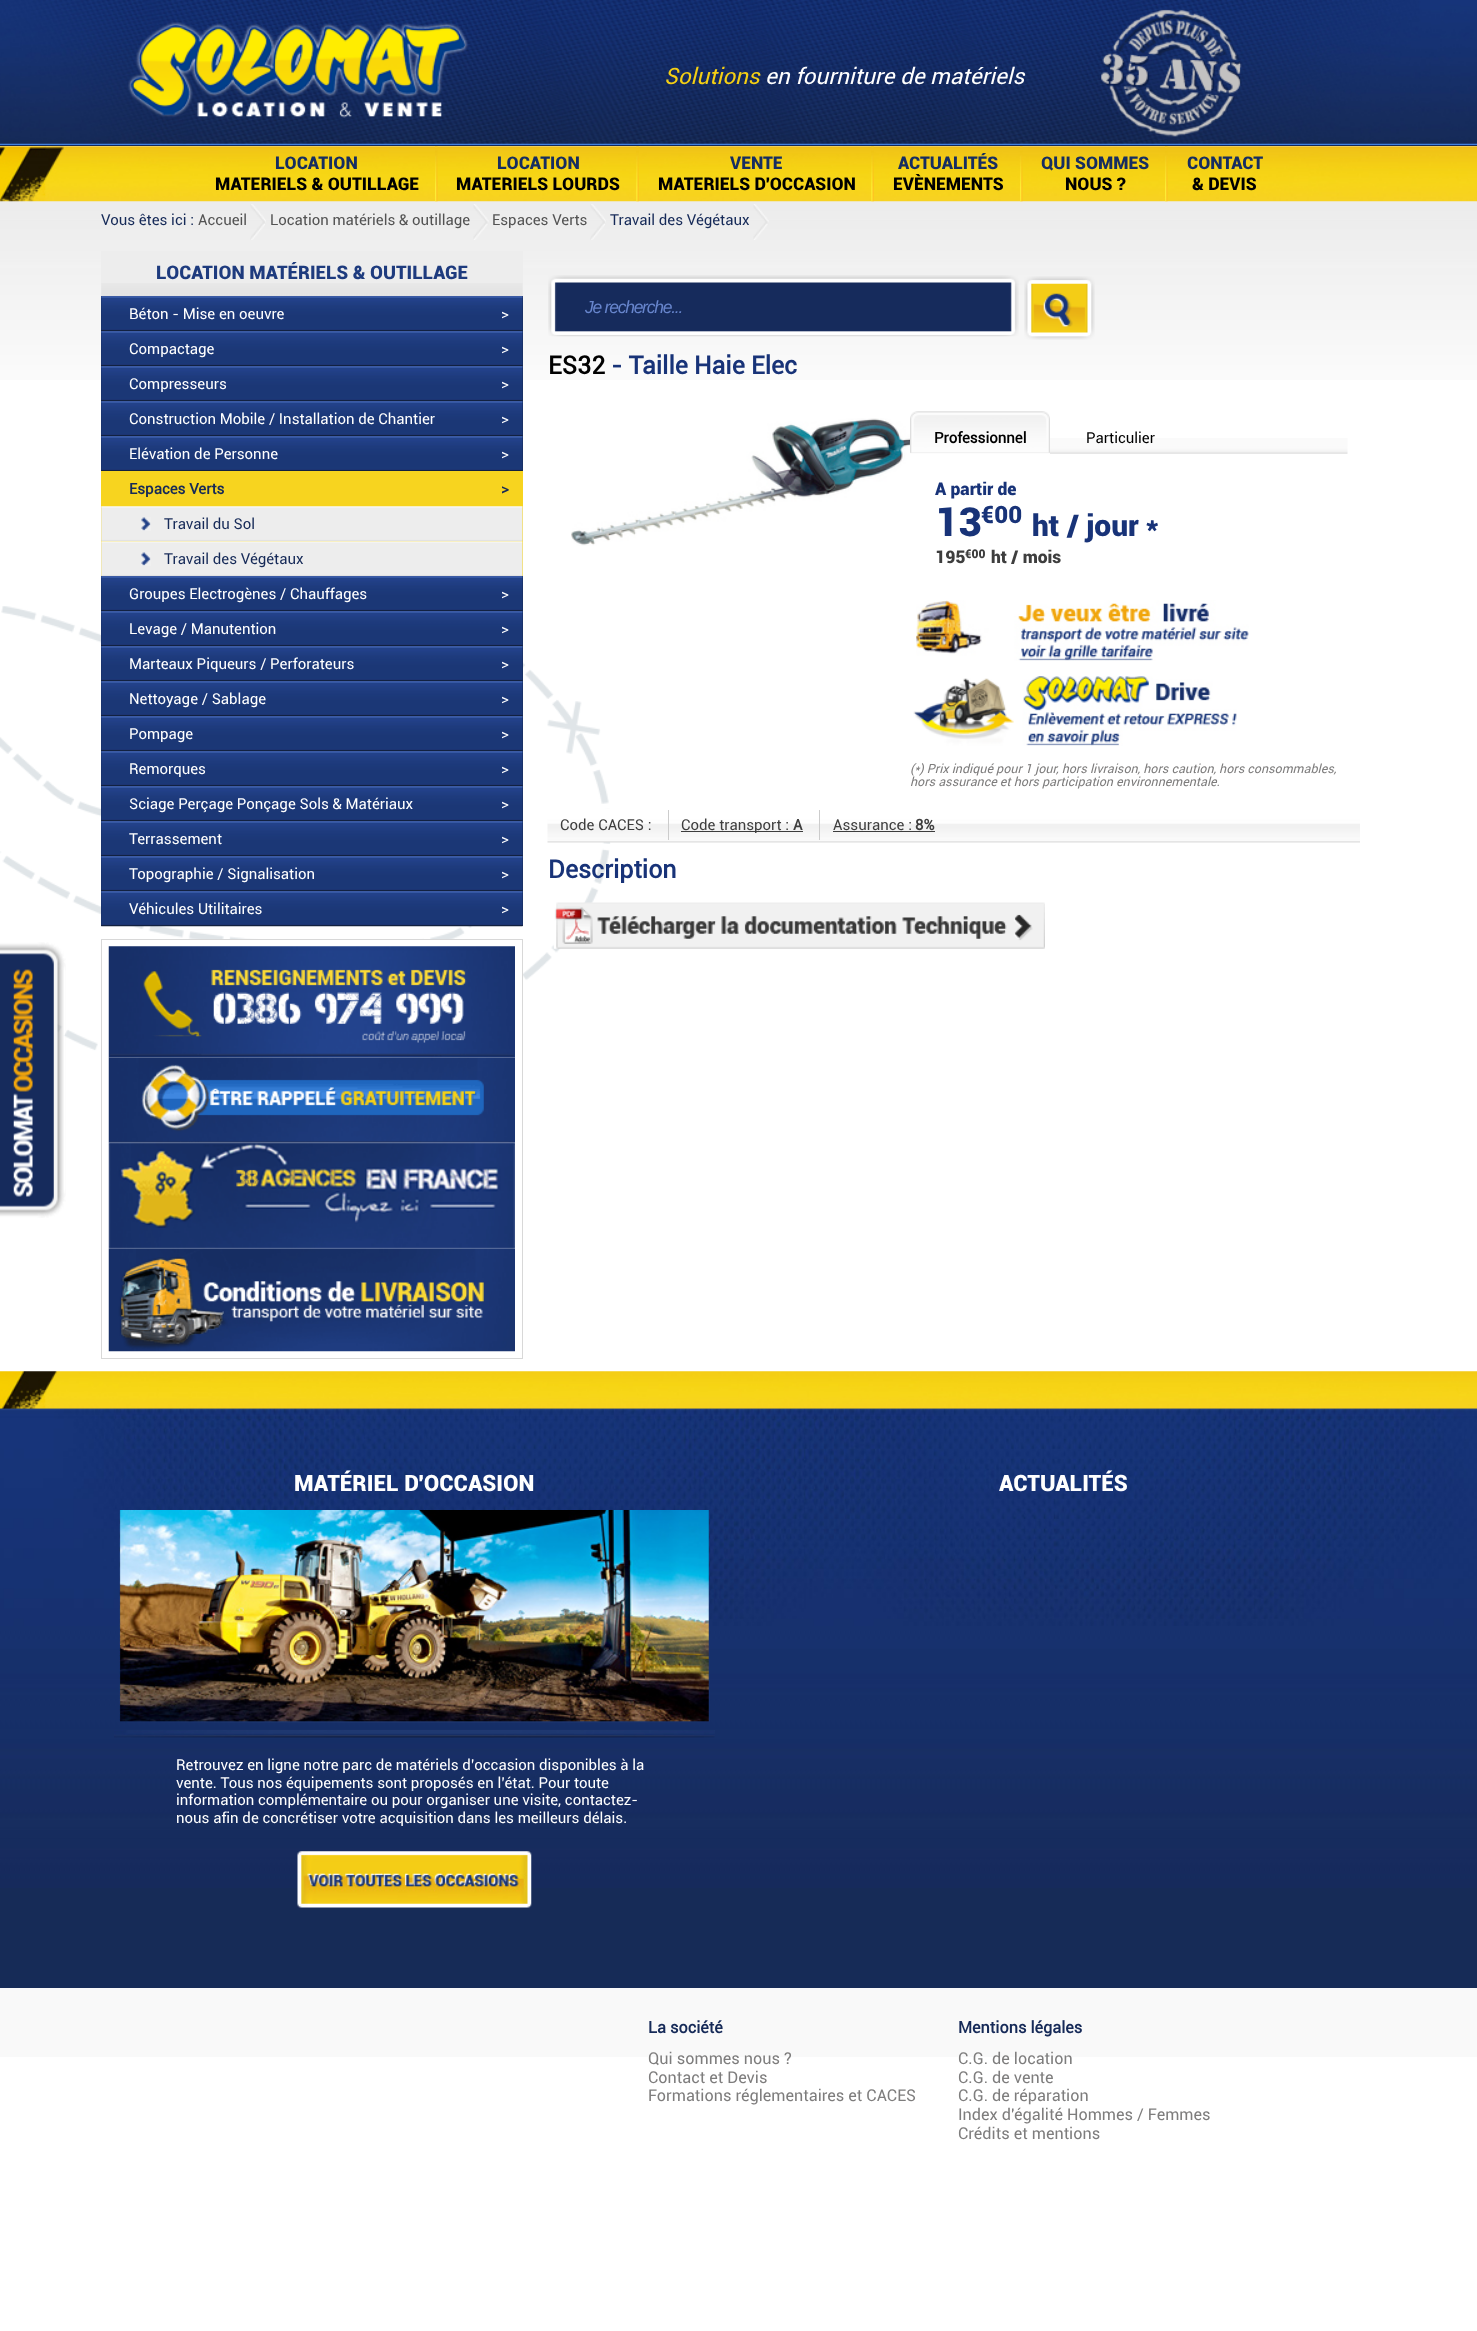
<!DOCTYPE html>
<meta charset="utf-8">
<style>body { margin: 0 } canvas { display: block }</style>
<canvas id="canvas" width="1477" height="2331"></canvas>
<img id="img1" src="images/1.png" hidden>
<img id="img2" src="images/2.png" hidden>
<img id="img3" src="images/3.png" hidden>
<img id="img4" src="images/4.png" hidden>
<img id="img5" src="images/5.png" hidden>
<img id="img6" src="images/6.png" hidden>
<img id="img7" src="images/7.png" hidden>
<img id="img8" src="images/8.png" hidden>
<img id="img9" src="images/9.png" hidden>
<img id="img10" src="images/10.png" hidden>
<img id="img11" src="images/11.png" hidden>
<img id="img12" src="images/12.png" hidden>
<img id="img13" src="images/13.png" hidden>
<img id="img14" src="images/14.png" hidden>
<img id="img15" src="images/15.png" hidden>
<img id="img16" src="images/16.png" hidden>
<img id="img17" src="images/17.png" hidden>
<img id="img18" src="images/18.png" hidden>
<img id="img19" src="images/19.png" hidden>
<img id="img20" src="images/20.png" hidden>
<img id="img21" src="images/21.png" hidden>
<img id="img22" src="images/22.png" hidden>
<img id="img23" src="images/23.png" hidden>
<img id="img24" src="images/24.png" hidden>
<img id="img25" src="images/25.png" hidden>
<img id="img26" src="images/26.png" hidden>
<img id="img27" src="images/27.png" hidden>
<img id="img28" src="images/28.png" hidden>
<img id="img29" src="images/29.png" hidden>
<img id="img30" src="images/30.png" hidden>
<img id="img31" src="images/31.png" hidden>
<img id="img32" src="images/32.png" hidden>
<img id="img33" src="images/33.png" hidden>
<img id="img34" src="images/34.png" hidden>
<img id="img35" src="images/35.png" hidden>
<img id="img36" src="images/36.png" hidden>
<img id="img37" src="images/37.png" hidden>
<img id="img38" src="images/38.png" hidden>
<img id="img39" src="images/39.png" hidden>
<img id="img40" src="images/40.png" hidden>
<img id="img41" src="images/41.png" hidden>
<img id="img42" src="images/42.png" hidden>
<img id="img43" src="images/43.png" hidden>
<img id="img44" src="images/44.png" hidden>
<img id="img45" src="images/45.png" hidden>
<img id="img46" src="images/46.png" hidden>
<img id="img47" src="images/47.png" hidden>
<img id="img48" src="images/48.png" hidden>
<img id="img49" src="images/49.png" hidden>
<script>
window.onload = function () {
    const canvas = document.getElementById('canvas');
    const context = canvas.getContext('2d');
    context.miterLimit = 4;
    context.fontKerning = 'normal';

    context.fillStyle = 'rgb(255, 255, 255)';
    context.fillRect(0, 0, 1477, 2331);
    context.drawImage(document.getElementById('img1'), 0, 201, 1477, 179);
    context.fillStyle = 'rgb(22, 43, 87)';
    context.fillRect(0, 145, 1477, 1);
    context.drawImage(document.getElementById('img2'), 0, 0, 1477, 145);
    context.drawImage(document.getElementById('img3'), 128, 22, 340, 96);
    context.drawImage(document.getElementById('img4'), 1101, 9, 141, 128);
    context.drawImage(document.getElementById('img5'), 0, 146, 1477, 56);
    context.drawImage(document.getElementById('img6'), 435, 146, 3, 56);
    context.drawImage(document.getElementById('img7'), 636, 146, 3, 56);
    context.drawImage(document.getElementById('img8'), 871, 146, 3, 56);
    context.drawImage(document.getElementById('img9'), 1020, 146, 3, 56);
    context.drawImage(document.getElementById('img10'), 1165, 146, 3, 56);
    context.drawImage(document.getElementById('img11'), 0, 606, 611, 445);
    context.drawImage(document.getElementById('img12'), 250, 204, 16, 36);
    context.drawImage(document.getElementById('img13'), 473, 204, 16, 36);
    context.drawImage(document.getElementById('img12'), 590, 204, 16, 36);
    context.drawImage(document.getElementById('img13'), 753, 204, 16, 36);
    context.fillStyle = 'rgb(237, 237, 237)';
    context.fillRect(101, 251, 422, 45);
    context.drawImage(document.getElementById('img14'), 101, 283, 422, 13);
    context.fillStyle = 'rgb(22, 43, 87)';
    context.fillRect(101, 296, 422, 175);
    context.drawImage(document.getElementById('img15'), 101, 296, 422, 35);
    context.drawImage(document.getElementById('img16'), 101, 331, 422, 35);
    context.drawImage(document.getElementById('img17'), 101, 366, 422, 35);
    context.drawImage(document.getElementById('img18'), 101, 401, 422, 35);
    context.drawImage(document.getElementById('img19'), 101, 436, 422, 35);
    context.fillStyle = 'rgb(247, 212, 31)';
    context.fillRect(101, 471, 422, 105);
    context.drawImage(document.getElementById('img20'), 101, 506, 422, 35);
    context.drawImage(document.getElementById('img21'), 141, 517, 10, 14);
    context.drawImage(document.getElementById('img20'), 101, 541, 422, 35);
    context.drawImage(document.getElementById('img21'), 141, 552, 10, 14);
    context.fillStyle = 'rgb(22, 43, 87)';
    context.fillRect(101, 576, 422, 350);
    context.drawImage(document.getElementById('img22'), 101, 576, 422, 35);
    context.drawImage(document.getElementById('img23'), 101, 611, 422, 35);
    context.drawImage(document.getElementById('img24'), 101, 646, 422, 35);
    context.drawImage(document.getElementById('img25'), 101, 681, 422, 35);
    context.drawImage(document.getElementById('img25'), 101, 716, 422, 35);
    context.drawImage(document.getElementById('img26'), 101, 751, 422, 35);
    context.drawImage(document.getElementById('img27'), 101, 786, 422, 35);
    context.drawImage(document.getElementById('img19'), 101, 821, 422, 35);
    context.drawImage(document.getElementById('img28'), 101, 856, 422, 35);
    context.drawImage(document.getElementById('img29'), 101, 891, 422, 36);
    context.fillStyle = 'rgb(255, 255, 255)';
    context.fillRect(102, 940, 420, 111);
    context.strokeStyle = 'rgb(216, 216, 216)';
    context.strokeRect(101.5, 939.5, 421, 419);
    context.drawImage(document.getElementById('img30'), 108, 946, 407, 112);
    context.drawImage(document.getElementById('img31'), 108, 1057, 407, 86);
    context.drawImage(document.getElementById('img32'), 108, 1142, 407, 107);
    context.drawImage(document.getElementById('img33'), 108, 1248, 407, 104);
    context.drawImage(document.getElementById('img34'), 548, 275, 471, 62);
    context.drawImage(document.getElementById('img35'), 1024, 276, 71, 64);
    context.drawImage(document.getElementById('img36'), 571, 418, 341, 128);
    context.drawImage(document.getElementById('img37'), 910, 438, 438, 16);
    context.drawImage(document.getElementById('img38'), 910, 411, 140, 42);
    context.fillStyle = 'rgb(252, 252, 252)';
    context.fillRect(910, 453, 140, 1);
    context.drawImage(document.getElementById('img39'), 916, 600, 333, 61);
    context.drawImage(document.getElementById('img40'), 913, 676, 324, 70);
    context.drawImage(document.getElementById('img41'), 547, 809, 813, 34);
    context.fillStyle = 'rgb(204, 204, 204)';
    context.fillRect(668, 810, 1, 30);
    context.fillStyle = 'rgb(61, 61, 61)';
    context.fillRect(681, 831, 122, 1);
    context.fillStyle = 'rgb(204, 204, 204)';
    context.fillRect(819, 810, 1, 30);
    context.fillStyle = 'rgb(61, 61, 61)';
    context.fillRect(833, 831, 102, 1);
    context.drawImage(document.getElementById('img42'), 553, 902, 492, 47);
    context.drawImage(document.getElementById('img43'), 0, 942, 66, 276);
    context.drawImage(document.getElementById('img44'), 0, 1371, 1477, 38);
    context.fillStyle = 'rgb(22, 43, 87)';
    context.fillRect(0, 1888, 1477, 100);
    context.drawImage(document.getElementById('img45'), 0, 1408, 1477, 480);
    context.drawImage(document.getElementById('img46'), 0, 1408, 1477, 218);
    context.drawImage(document.getElementById('img47'), 114, 1730, 601, 8);
    context.drawImage(document.getElementById('img48'), 119, 1510, 591, 213);
    context.drawImage(document.getElementById('img49'), 297, 1851, 235, 57);
    context.fillStyle = 'rgb(249, 249, 249)';
    context.fillRect(0, 1988, 1477, 69);
    context.font = 'italic 22.5px Roboto';
    context.fillStyle = 'rgb(244, 207, 20)';
    context.fillText('Solutions', 664, 84);
    context.fillStyle = 'rgb(255, 255, 255)';
    context.fillText('en fourniture de matériels', 765, 84);
    context.font = '900 17.5px Roboto';
    context.fillStyle = 'rgb(22, 45, 97)';
    context.fillText('LOCATION', 275, 169);
    context.fillStyle = 'rgb(0, 0, 0)';
    context.fillText('MATERIELS & OUTILLAGE', 215, 190);
    context.fillStyle = 'rgb(22, 45, 97)';
    context.fillText('LOCATION', 497, 169);
    context.fillStyle = 'rgb(0, 0, 0)';
    context.fillText('MATERIELS LOURDS', 456, 190);
    context.fillStyle = 'rgb(22, 45, 97)';
    context.fillText('VENTE', 730, 169);
    context.fillStyle = 'rgb(0, 0, 0)';
    context.fillText('MATERIELS D\'OCCASION', 658, 190);
    context.fillStyle = 'rgb(22, 45, 97)';
    context.fillText('ACTUALITÉS', 898, 169);
    context.fillStyle = 'rgb(0, 0, 0)';
    context.fillText('EVÈNEMENTS', 893, 190);
    context.fillStyle = 'rgb(22, 45, 97)';
    context.fillText('QUI SOMMES', 1041, 169);
    context.fillStyle = 'rgb(0, 0, 0)';
    context.fillText('NOUS ?', 1065, 190);
    context.fillStyle = 'rgb(22, 45, 97)';
    context.fillText('CONTACT', 1187, 169);
    context.fillStyle = 'rgb(0, 0, 0)';
    context.fillText('& DEVIS', 1192, 190);
    context.font = '15px Roboto';
    context.fillStyle = 'rgb(22, 42, 88)';
    context.fillText('Vous êtes ici :', 101, 225);
    context.fillStyle = 'rgb(83, 83, 83)';
    context.fillText('Accueil', 198, 225);
    context.fillText('Location matériels & outillage', 270, 225);
    context.fillText('Espaces Verts', 492, 225);
    context.fillStyle = 'rgb(22, 42, 88)';
    context.fillText('Travail des Végétaux', 610, 225);
    context.font = '900 18.75px Roboto';
    context.fillStyle = 'rgb(30, 59, 126)';
    context.fillText('LOCATION MATÉRIELS & OUTILLAGE', 156, 279);
    context.font = '15px Roboto';
    context.fillStyle = 'rgb(255, 255, 255)';
    context.fillText('Béton - Mise en oeuvre', 129, 319);
    context.fillText('>', 501, 319);
    context.fillText('Compactage', 129, 354);
    context.fillText('>', 501, 354);
    context.fillText('Compresseurs', 129, 389);
    context.fillText('>', 501, 389);
    context.fillText('Construction Mobile / Installation de Chantier', 129, 424);
    context.fillText('>', 501, 424);
    context.fillText('Elévation de Personne', 129, 459);
    context.fillText('>', 501, 459);
    context.font = 'bold 15px Roboto';
    context.fillStyle = 'rgb(22, 42, 88)';
    context.fillText('Espaces Verts', 129, 494);
    context.fillText('>', 501, 494);
    context.font = '15px Roboto';
    context.fillText('Travail du Sol', 164, 529);
    context.fillText('Travail des Végétaux', 164, 564);
    context.fillStyle = 'rgb(255, 255, 255)';
    context.fillText('Groupes Electrogènes / Chauffages', 129, 599);
    context.fillText('>', 501, 599);
    context.fillText('Levage / Manutention', 129, 634);
    context.fillText('>', 501, 634);
    context.fillText('Marteaux Piqueurs / Perforateurs', 129, 669);
    context.fillText('>', 501, 669);
    context.fillText('Nettoyage / Sablage', 129, 704);
    context.fillText('>', 501, 704);
    context.fillText('Pompage', 129, 739);
    context.fillText('>', 501, 739);
    context.fillText('Remorques', 129, 774);
    context.fillText('>', 501, 774);
    context.fillText('Sciage Perçage Ponçage Sols & Matériaux', 129, 809);
    context.fillText('>', 501, 809);
    context.fillText('Terrassement', 129, 844);
    context.fillText('>', 501, 844);
    context.fillText('Topographie / Signalisation', 129, 879);
    context.fillText('>', 501, 879);
    context.fillText('Véhicules Utilitaires', 129, 914);
    context.fillText('>', 501, 914);
    context.letterSpacing = '-1.25px';
    context.font = 'italic 17.5px Liberation Sans';
    context.fillStyle = 'rgb(103, 133, 204)';
    context.fillText('Je recherche...', 585, 313);
    context.letterSpacing = '0px';
    context.font = 'bold 25px Roboto';
    context.fillStyle = 'rgb(0, 0, 0)';
    context.fillText('ES32', 548, 374);
    context.fillStyle = 'rgb(24, 51, 120)';
    context.fillText('- Taille Haie Elec', 611, 374);
    context.font = 'bold 15px Roboto';
    context.fillStyle = 'rgb(0, 0, 0)';
    context.fillText('Professionnel', 934, 443);
    context.font = '15px Roboto';
    context.fillText('Particulier', 1086, 443);
    context.font = '900 17.5px Roboto';
    context.fillStyle = 'rgb(24, 51, 120)';
    context.fillText('A partir de', 935, 495);
    context.font = '900 40px Roboto';
    context.fillText('13', 935, 536);
    context.font = '900 24px Roboto';
    context.fillText('€00', 981, 523);
    context.font = '900 30px Roboto';
    context.fillText('ht / jour *', 1032, 536);
    context.font = '900 17.5px Roboto';
    context.fillStyle = 'rgb(62, 62, 62)';
    context.fillText('195', 935, 563);
    context.font = '900 12px Roboto';
    context.fillText('€00', 965, 558);
    context.font = '900 17.5px Roboto';
    context.fillText('ht / mois', 991, 563);
    context.font = 'italic 12.5px Roboto';
    context.fillStyle = 'rgb(126, 125, 125)';
    context.fillText('(*) Prix indiqué pour 1 jour, hors livraison, hors caution, hors consommables,', 910, 773);
    context.fillText('hors assurance et hors participation environnementale.', 910, 786);
    context.font = '15px Roboto';
    context.fillStyle = 'rgb(62, 62, 62)';
    context.fillText('Code CACES :', 560, 830);
    context.fillText('Code transport :', 681, 830);
    context.font = 'bold 15px Roboto';
    context.fillText('A', 793, 830);
    context.font = '15px Roboto';
    context.fillText('Assurance :', 833, 830);
    context.font = 'bold 15px Roboto';
    context.fillText('8%', 915, 830);
    context.font = 'bold 25px Roboto';
    context.fillStyle = 'rgb(24, 51, 120)';
    context.fillText('Description', 548, 878);
    context.font = '900 22.5px Roboto';
    context.fillStyle = 'rgb(255, 255, 255)';
    context.fillText('MATÉRIEL D\'OCCASION', 294, 1491);
    context.font = '15px Roboto';
    context.fillText('Retrouvez en ligne notre parc de matériels d’occasion disponibles à la', 176, 1770);
    context.fillText('vente. Tous nos équipements sont proposés en l’état. Pour toute', 176, 1788);
    context.fillText('information complémentaire ou pour organiser une visite, contactez-', 176, 1805);
    context.fillText('nous afin de concrétiser votre acquisition dans les meilleurs délais.', 176, 1823);
    context.font = '900 22.5px Roboto';
    context.fillText('ACTUALITÉS', 999, 1491);
    context.font = 'bold 16.25px Roboto';
    context.fillStyle = 'rgb(22, 42, 88)';
    context.fillText('La société', 648, 2033);
    context.font = '16.25px Roboto';
    context.fillStyle = 'rgb(126, 125, 125)';
    context.fillText('Qui sommes nous ?', 648, 2064);
    context.fillText('Contact et Devis', 648, 2083);
    context.fillText('Formations réglementaires et CACES', 648, 2101);
    context.font = 'bold 16.25px Roboto';
    context.fillStyle = 'rgb(22, 42, 88)';
    context.fillText('Mentions légales', 958, 2033);
    context.font = '16.25px Roboto';
    context.fillStyle = 'rgb(126, 125, 125)';
    context.fillText('C.G. de location', 958, 2064);
    context.fillText('C.G. de vente', 958, 2083);
    context.fillText('C.G. de réparation', 958, 2101);
    context.fillText('Index d\'égalité Hommes / Femmes', 958, 2120);
    context.fillText('Crédits et mentions', 958, 2139);
};
</script>
